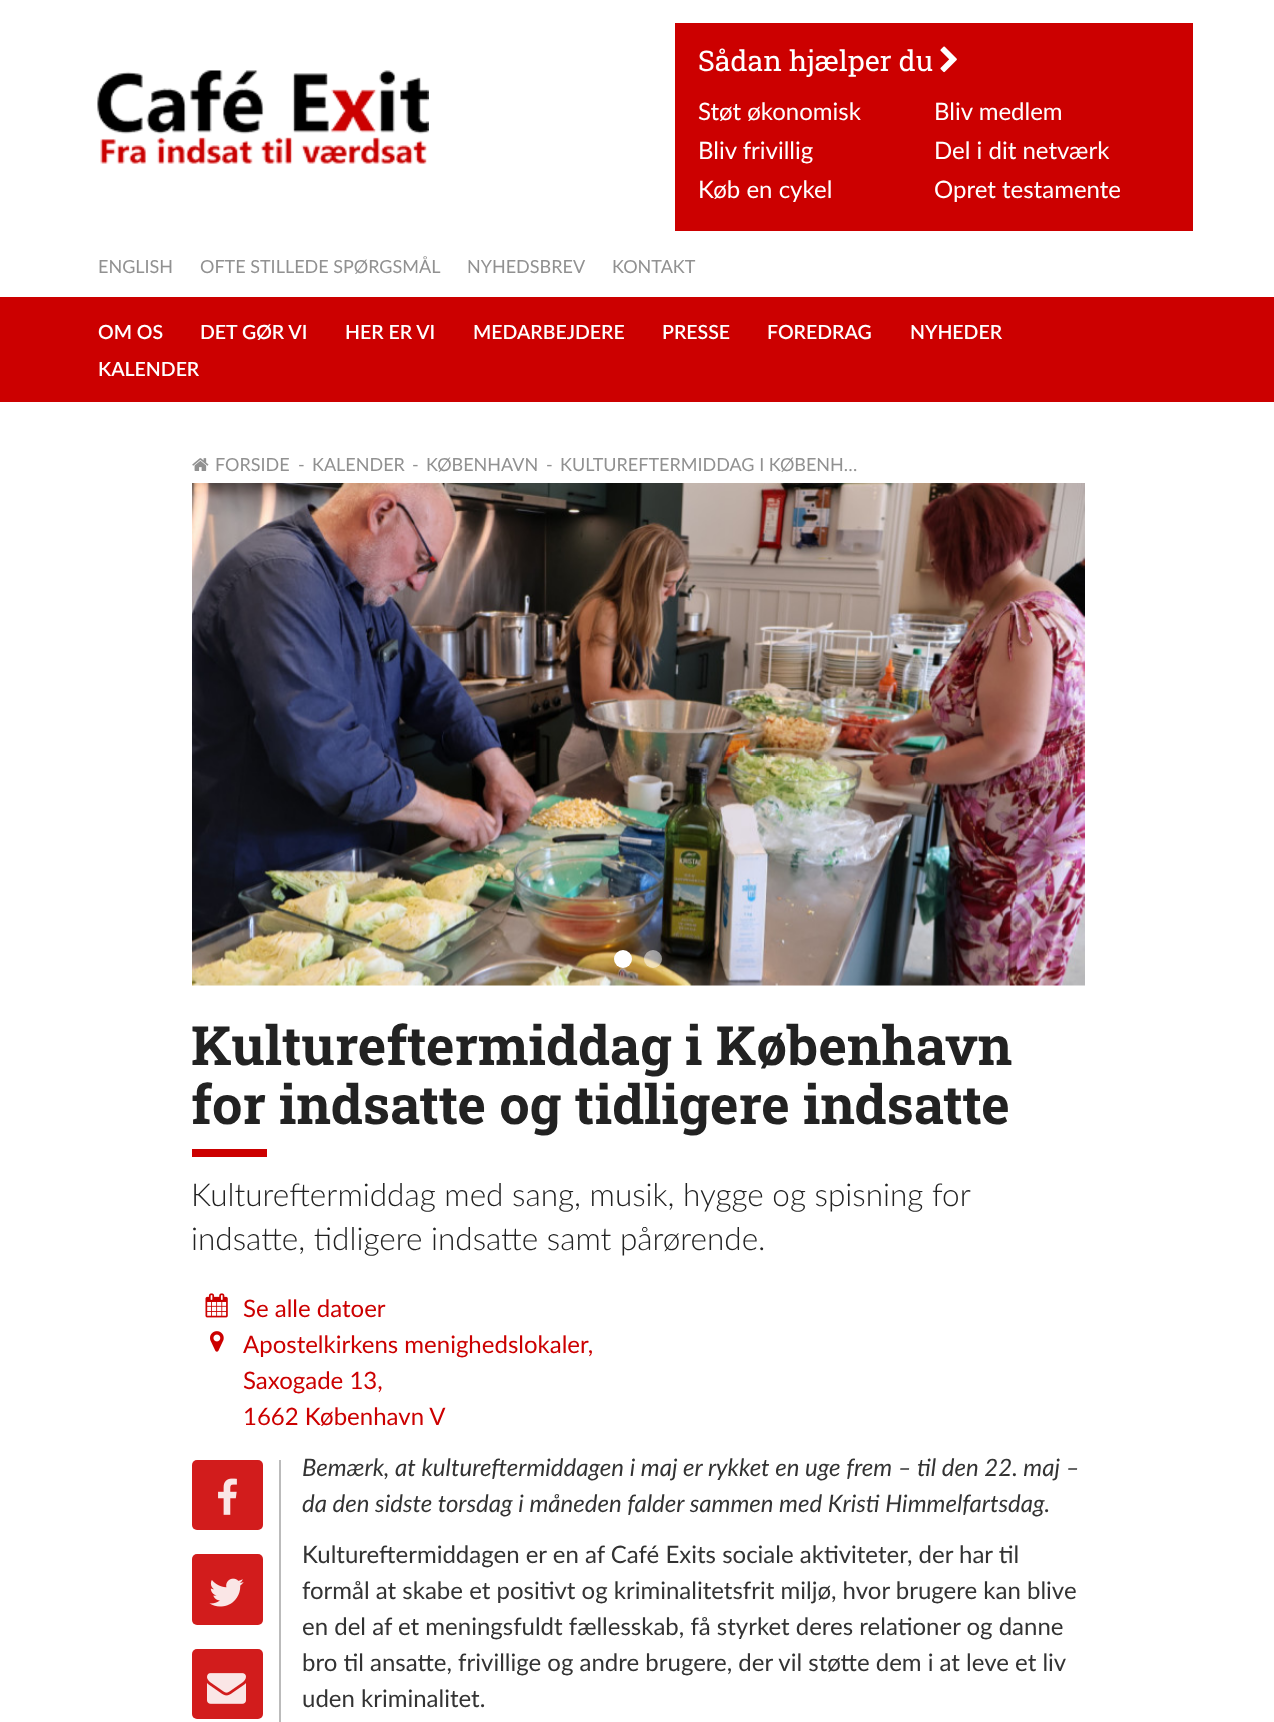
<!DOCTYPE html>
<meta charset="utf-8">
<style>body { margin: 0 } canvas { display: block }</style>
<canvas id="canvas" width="1274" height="1722"></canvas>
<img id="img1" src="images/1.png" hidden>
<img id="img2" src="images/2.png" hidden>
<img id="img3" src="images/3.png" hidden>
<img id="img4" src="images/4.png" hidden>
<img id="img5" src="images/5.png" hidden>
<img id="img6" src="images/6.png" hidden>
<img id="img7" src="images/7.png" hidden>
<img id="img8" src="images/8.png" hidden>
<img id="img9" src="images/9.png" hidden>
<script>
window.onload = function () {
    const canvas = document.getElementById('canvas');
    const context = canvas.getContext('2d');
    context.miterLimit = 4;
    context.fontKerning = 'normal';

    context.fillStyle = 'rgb(255, 255, 255)';
    context.fillRect(0, 0, 1274, 1722);
    context.fillStyle = 'rgb(204, 0, 0)';
    context.fillRect(675, 23, 518, 208);
    context.drawImage(document.getElementById('img1'), 940, 46, 17, 27);
    context.drawImage(document.getElementById('img2'), 97, 70, 332, 94);
    context.fillRect(0, 297, 1274, 105);
    context.drawImage(document.getElementById('img3'), 192, 458, 17, 13);
    context.drawImage(document.getElementById('img4'), 192, 483, 893, 503);
    context.fillStyle = 'rgb(255, 255, 255)';
    context.beginPath();
    context.arc(623, 959, 9, 0, 2 * Math.PI);
    context.fill();
    context.fillStyle = 'rgba(255, 255, 255, 0.5)';
    context.beginPath();
    context.arc(653, 959, 9, 0, 2 * Math.PI);
    context.fill();
    context.fillStyle = 'rgb(204, 0, 0)';
    context.fillRect(192, 1149, 75, 8);
    context.drawImage(document.getElementById('img5'), 205, 1293, 23, 25);
    context.drawImage(document.getElementById('img6'), 210, 1331, 14, 21);
    context.fillStyle = 'rgb(187, 187, 187)';
    context.fillRect(279, 1460, 2, 262);
    context.fillStyle = 'rgb(210, 28, 28)';
    context.beginPath();
    context.roundRect(192, 1460, 71, 70, 5);
    context.fill();
    context.drawImage(document.getElementById('img7'), 218, 1478, 19, 37);
    context.beginPath();
    context.roundRect(192, 1554, 71, 71, 5);
    context.fill();
    context.drawImage(document.getElementById('img8'), 209, 1578, 35, 29);
    context.beginPath();
    context.roundRect(192, 1649, 71, 70, 5);
    context.fill();
    context.drawImage(document.getElementById('img9'), 207, 1673, 39, 31);
    context.font = '28.5px Roboto Slab';
    context.fillStyle = 'rgb(255, 255, 255)';
    context.fillText('Sådan hjælper du', 698, 71);
    context.font = '24px Lato';
    context.fillText('Støt økonomisk', 698, 120);
    context.fillText('Bliv medlem', 934, 120);
    context.fillText('Bliv frivillig', 698, 159);
    context.fillText('Del i dit netværk', 934, 159);
    context.fillText('Køb en cykel', 698, 198);
    context.fillText('Opret testamente', 934, 198);
    context.font = '18px Lato';
    context.fillStyle = 'rgb(145, 145, 145)';
    context.fillText('ENGLISH', 98, 273);
    context.fillText('OFTE STILLEDE SPØRGSMÅL', 200, 273);
    context.fillText('NYHEDSBREV', 467, 273);
    context.fillText('KONTAKT', 612, 273);
    context.font = '600 19.5px Lato';
    context.fillStyle = 'rgb(255, 255, 255)';
    context.fillText('OM OS', 98, 339);
    context.fillText('DET GØR VI', 200, 339);
    context.fillText('HER ER VI', 345, 339);
    context.fillText('MEDARBEJDERE', 473, 339);
    context.fillText('PRESSE', 662, 339);
    context.fillText('FOREDRAG', 767, 339);
    context.fillText('NYHEDER', 910, 339);
    context.fillText('KALENDER', 98, 376);
    context.font = '18px Lato';
    context.fillStyle = 'rgb(145, 145, 145)';
    context.fillText('FORSIDE', 215, 471);
    context.fillText('-', 298, 471);
    context.fillText('KALENDER', 312, 471);
    context.fillText('-', 412, 471);
    context.fillText('KØBENHAVN', 426, 471);
    context.fillText('-', 546, 471);
    context.fillText('KULTUREFTERMIDDAG I KØBENH…', 560, 471);
    context.font = 'bold 54px Roboto Slab';
    context.fillStyle = 'rgb(34, 34, 34)';
    context.fillText('Kultureftermiddag i København', 191, 1065);
    context.fillText('for indsatte og tidligere indsatte', 191, 1124);
    context.font = '300 31.5px Lato';
    context.fillText('Kultureftermiddag med sang, musik, hygge og spisning for', 191, 1206);
    context.fillText('indsatte, tidligere indsatte samt pårørende.', 191, 1250);
    context.font = '24px Lato';
    context.fillStyle = 'rgb(204, 0, 0)';
    context.fillText('Se alle datoer', 243, 1317);
    context.fillText('Apostelkirkens menighedslokaler,', 243, 1353);
    context.fillText('Saxogade 13,', 243, 1389);
    context.fillText('1662 København V', 243, 1425);
    context.font = 'italic 24px Lato';
    context.fillStyle = 'rgb(51, 51, 51)';
    context.fillText('Bemærk, at kultureftermiddagen i maj er rykket en uge frem – til den 22. maj –', 302, 1476);
    context.fillText('da den sidste torsdag i måneden falder sammen med Kristi Himmelfartsdag.', 302, 1512);
    context.font = '24px Lato';
    context.fillText('Kultureftermiddagen er en af Café Exits sociale aktiviteter, der har til', 302, 1563);
    context.fillText('formål at skabe et positivt og kriminalitetsfrit miljø, hvor brugere kan blive', 302, 1599);
    context.fillText('en del af et meningsfuldt fællesskab, få styrket deres relationer og danne', 302, 1635);
    context.fillText('bro til ansatte, frivillige og andre brugere, der vil støtte dem i at leve et liv', 302, 1671);
    context.fillText('uden kriminalitet.', 302, 1707);
};
</script>
